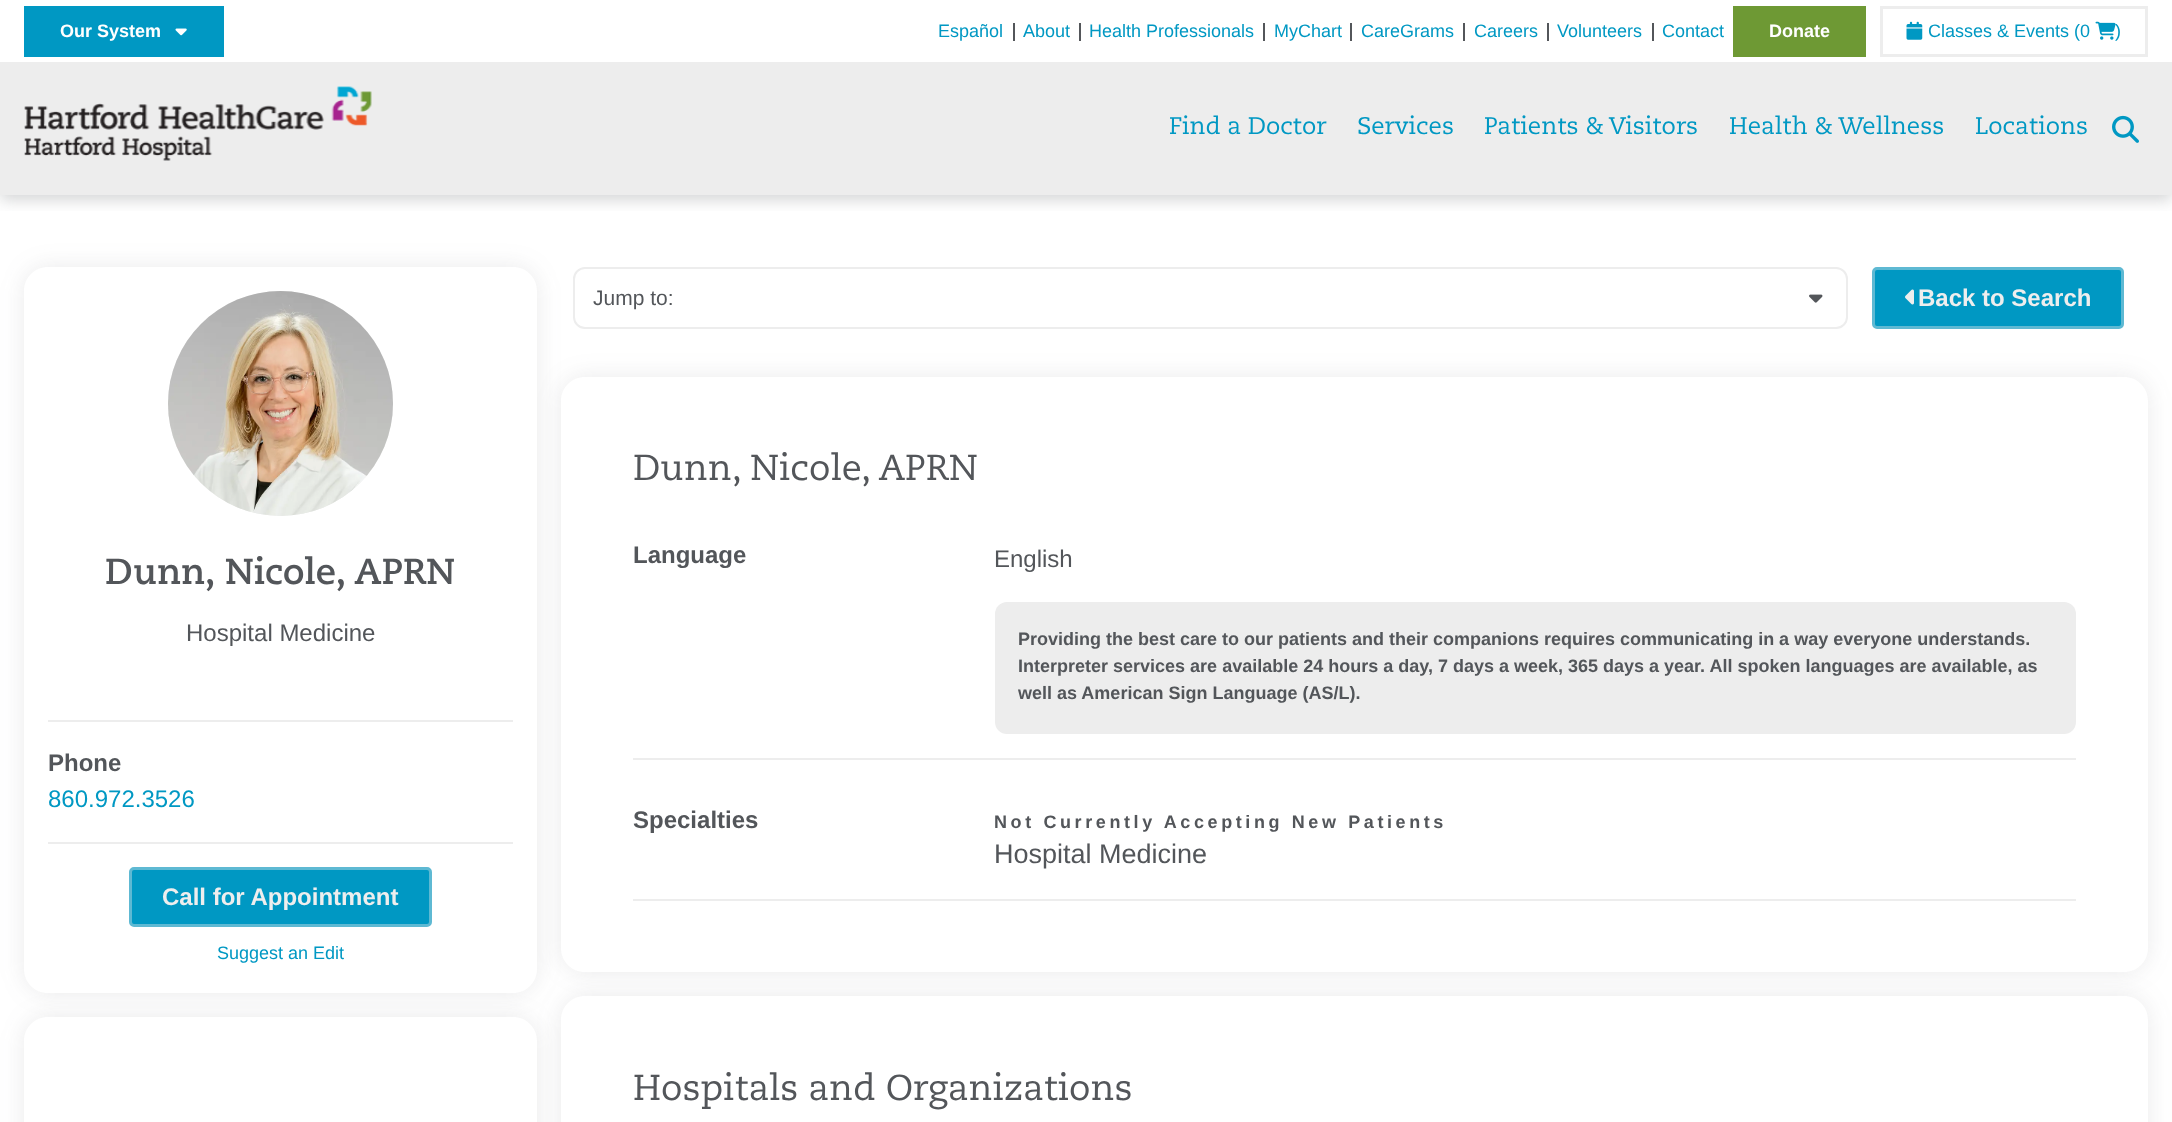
<!DOCTYPE html>
<meta charset="utf-8">
<style>body { margin: 0 } canvas { display: block }</style>
<canvas id="canvas" width="2172" height="1122"></canvas>
<img id="img1" src="images/1.png" hidden>
<img id="img2" src="images/2.png" hidden>
<img id="img3" src="images/3.png" hidden>
<img id="img4" src="images/4.png" hidden>
<img id="img5" src="images/5.png" hidden>
<img id="img6" src="images/7.png" hidden>
<img id="img7" src="images/6.png" hidden>
<img id="img8" src="images/8.png" hidden>
<script>
window.onload = function () {
    const canvas = document.getElementById('canvas');
    const context = canvas.getContext('2d');
    context.miterLimit = 4;
    context.fontKerning = 'normal';

    context.fillStyle = 'rgb(255, 255, 255)';
    context.fillRect(0, 0, 2172, 1122);
    context.save();
    context.beginPath();
    context.rect(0, 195, 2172, 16);
    context.clip();
    context.fillStyle = 'rgba(83, 86, 90, 0.25)';
    context.filter = 'blur(7.5px)';
    context.beginPath();
    context.rect(0, 5, 2172, 195);
    context.fill();
    context.filter = 'none';
    context.restore();
    context.fillStyle = 'rgb(0, 152, 195)';
    context.fillRect(24, 6, 200, 51);
    context.drawImage(document.getElementById('img1'), 175, 28, 12, 8);
    context.fillStyle = 'rgb(83, 86, 90)';
    context.fillRect(1013, 23, 2, 18);
    context.fillRect(1079, 23, 2, 18);
    context.fillRect(1263, 23, 2, 18);
    context.fillRect(1350, 23, 2, 18);
    context.fillRect(1463, 23, 2, 18);
    context.fillRect(1547, 23, 2, 18);
    context.fillRect(1652, 23, 2, 18);
    context.fillStyle = 'rgb(110, 153, 52)';
    context.fillRect(1733, 6, 133, 51);
    context.strokeStyle = 'rgb(237, 237, 237)';
    context.lineWidth = 3;
    context.strokeRect(1881.5, 7.5, 265, 48);
    context.drawImage(document.getElementById('img2'), 1906, 21, 17, 19);
    context.drawImage(document.getElementById('img3'), 2095, 21, 21, 19);
    context.fillStyle = 'rgb(237, 237, 237)';
    context.fillRect(0, 62, 2172, 133);
    context.drawImage(document.getElementById('img4'), 24, 86, 348, 75);
    context.drawImage(document.getElementById('img5'), 2112, 115, 27, 28);
    context.drawImage(document.getElementById('img6'), 1809, 294, 14, 9);
    context.beginPath();
    context.roundRect(574, 268, 1273, 60, 11);
    context.lineWidth = 2;
    context.stroke();
    context.save();
    context.beginPath();
    context.moveTo(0, 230);
    context.lineTo(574, 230);
    context.lineTo(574, 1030);
    context.lineTo(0, 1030);
    context.closePath();
    context.moveTo(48, 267);
    context.lineTo(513, 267);
    context.bezierCurveTo(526.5, 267, 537, 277.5, 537, 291);
    context.lineTo(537, 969);
    context.bezierCurveTo(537, 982.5, 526.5, 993, 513, 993);
    context.lineTo(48, 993);
    context.bezierCurveTo(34.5, 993, 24, 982.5, 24, 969);
    context.lineTo(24, 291);
    context.bezierCurveTo(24, 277.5, 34.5, 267, 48, 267);
    context.closePath();
    context.clip('evenodd');
    context.fillStyle = 'rgba(83, 86, 90, 0.12)';
    context.filter = 'blur(12px)';
    context.beginPath();
    context.roundRect(24, 267, 513, 726, 24);
    context.fill();
    context.filter = 'none';
    context.restore();
    context.beginPath();
    context.arc(280.5, 403.5, 112.5, 0, 2 * Math.PI);
    context.fill();
    context.drawImage(document.getElementById('img7'), 168, 291, 225, 225);
    context.fillRect(48, 720, 465, 2);
    context.fillRect(48, 842, 465, 2);
    context.fillStyle = 'rgb(0, 152, 195)';
    context.beginPath();
    context.roundRect(130.5, 868.5, 300, 57, 3.5);
    context.fill();
    context.strokeStyle = 'rgb(94, 185, 211)';
    context.lineWidth = 3;
    context.stroke();
    context.save();
    context.beginPath();
    context.moveTo(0, 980);
    context.lineTo(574, 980);
    context.lineTo(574, 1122);
    context.lineTo(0, 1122);
    context.closePath();
    context.moveTo(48, 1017);
    context.lineTo(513, 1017);
    context.bezierCurveTo(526.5, 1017, 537, 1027.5, 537, 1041);
    context.lineTo(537, 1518);
    context.bezierCurveTo(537, 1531.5, 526.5, 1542, 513, 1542);
    context.lineTo(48, 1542);
    context.bezierCurveTo(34.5, 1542, 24, 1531.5, 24, 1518);
    context.lineTo(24, 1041);
    context.bezierCurveTo(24, 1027.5, 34.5, 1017, 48, 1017);
    context.closePath();
    context.clip('evenodd');
    context.fillStyle = 'rgba(83, 86, 90, 0.12)';
    context.filter = 'blur(12px)';
    context.beginPath();
    context.roundRect(24, 1017, 513, 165, 24);
    context.fill();
    context.filter = 'none';
    context.restore();
    context.beginPath();
    context.roundRect(1873.5, 268.5, 249, 59, 3.5);
    context.fill();
    context.stroke();
    context.drawImage(document.getElementById('img8'), 1905, 289, 9, 16);
    context.save();
    context.beginPath();
    context.moveTo(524, 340);
    context.lineTo(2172, 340);
    context.lineTo(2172, 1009);
    context.lineTo(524, 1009);
    context.closePath();
    context.moveTo(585, 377);
    context.lineTo(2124, 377);
    context.bezierCurveTo(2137.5, 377, 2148, 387.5, 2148, 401);
    context.lineTo(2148, 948);
    context.bezierCurveTo(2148, 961.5, 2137.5, 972, 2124, 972);
    context.lineTo(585, 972);
    context.bezierCurveTo(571.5, 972, 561, 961.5, 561, 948);
    context.lineTo(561, 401);
    context.bezierCurveTo(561, 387.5, 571.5, 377, 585, 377);
    context.closePath();
    context.clip('evenodd');
    context.fillStyle = 'rgba(83, 86, 90, 0.12)';
    context.filter = 'blur(12px)';
    context.beginPath();
    context.roundRect(561, 377, 1587, 595, 24);
    context.fill();
    context.filter = 'none';
    context.restore();
    context.fillStyle = 'rgb(237, 237, 237)';
    context.beginPath();
    context.roundRect(995, 602, 1081, 132, 12);
    context.fill();
    context.fillRect(633, 758, 1443, 2);
    context.fillRect(633, 899, 1443, 2);
    context.save();
    context.beginPath();
    context.moveTo(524, 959);
    context.lineTo(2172, 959);
    context.lineTo(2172, 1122);
    context.lineTo(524, 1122);
    context.closePath();
    context.moveTo(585, 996);
    context.lineTo(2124, 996);
    context.bezierCurveTo(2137.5, 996, 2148, 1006.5, 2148, 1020);
    context.lineTo(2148, 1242);
    context.bezierCurveTo(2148, 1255.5, 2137.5, 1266, 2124, 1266);
    context.lineTo(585, 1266);
    context.bezierCurveTo(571.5, 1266, 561, 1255.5, 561, 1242);
    context.lineTo(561, 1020);
    context.bezierCurveTo(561, 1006.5, 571.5, 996, 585, 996);
    context.closePath();
    context.clip('evenodd');
    context.fillStyle = 'rgba(83, 86, 90, 0.12)';
    context.filter = 'blur(12px)';
    context.beginPath();
    context.roundRect(561, 996, 1587, 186, 24);
    context.fill();
    context.filter = 'none';
    context.restore();
    context.font = 'bold 18px Liberation Sans';
    context.fillStyle = 'rgb(255, 255, 255)';
    context.fillText('Our System', 60, 37);
    context.font = '18px Liberation Sans';
    context.fillStyle = 'rgb(0, 152, 195)';
    context.fillText('Español', 938, 37);
    context.fillText('About', 1023, 37);
    context.fillText('Health Professionals', 1089, 37);
    context.fillText('MyChart', 1274, 37);
    context.fillText('CareGrams', 1361, 37);
    context.fillText('Careers', 1474, 37);
    context.fillText('Volunteers', 1557, 37);
    context.fillText('Contact', 1662, 37);
    context.font = 'bold 18px Liberation Sans';
    context.fillStyle = 'rgb(255, 255, 255)';
    context.fillText('Donate', 1769, 37);
    context.font = '18px Liberation Sans';
    context.fillStyle = 'rgb(0, 152, 195)';
    context.fillText('Classes & Events (0', 1928, 37);
    context.fillText(')', 2115, 37);
    context.font = '24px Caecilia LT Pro';
    context.fillText('Find a Doctor', 1169, 134);
    context.fillText('Services', 1357, 134);
    context.fillText('Patients & Visitors', 1484, 134);
    context.fillText('Health & Wellness', 1729, 134);
    context.fillText('Locations', 1975, 134);
    context.font = 'bold 36px Caecilia LT Pro';
    context.fillStyle = 'rgb(83, 86, 90)';
    context.fillText('Dunn, Nicole, APRN', 105, 584);
    context.font = '24px Liberation Sans';
    context.fillText('Hospital Medicine', 186, 641);
    context.font = 'bold 24px Liberation Sans';
    context.fillText('Phone', 48, 771);
    context.font = '24px Liberation Sans';
    context.fillStyle = 'rgb(0, 152, 195)';
    context.fillText('860.972.3526', 48, 807);
    context.font = 'bold 24px Liberation Sans';
    context.fillStyle = 'rgb(238, 238, 238)';
    context.fillText('Call for Appointment', 162, 905);
    context.font = '18px Liberation Sans';
    context.fillStyle = 'rgb(0, 152, 195)';
    context.fillText('Suggest an Edit', 217, 959);
    context.font = '21px Liberation Sans';
    context.fillStyle = 'rgb(83, 86, 90)';
    context.fillText('Jump to:', 593, 305);
    context.font = 'bold 24px Liberation Sans';
    context.fillStyle = 'rgb(238, 238, 238)';
    context.fillText('Back to Search', 1918, 306);
    context.font = '36px Caecilia LT Pro';
    context.fillStyle = 'rgb(83, 86, 90)';
    context.fillText('Dunn, Nicole, APRN', 633, 480);
    context.font = 'bold 24px Liberation Sans';
    context.fillText('Language', 633, 563);
    context.font = '24px Liberation Sans';
    context.fillText('English', 994, 567);
    context.font = 'bold 18px Liberation Sans';
    context.fillText('Providing the best care to our patients and their companions requires communicating in a way everyone understands.', 1018, 645);
    context.fillText('Interpreter services are available 24 hours a day, 7 days a week, 365 days a year. All spoken languages are available, as', 1018, 672);
    context.fillText('well as American Sign Language (AS/L).', 1018, 699);
    context.font = 'bold 24px Liberation Sans';
    context.fillText('Specialties', 633, 828);
    context.letterSpacing = '3.6px';
    context.font = 'bold 18px Liberation Sans';
    context.fillText('Not Currently Accepting New Patients', 994, 828);
    context.letterSpacing = '0px';
    context.font = '27px Liberation Sans';
    context.fillText('Hospital Medicine', 994, 863);
    context.font = '36px Caecilia LT Pro';
    context.fillText('Hospitals and Organizations', 633, 1100);
};
</script>
